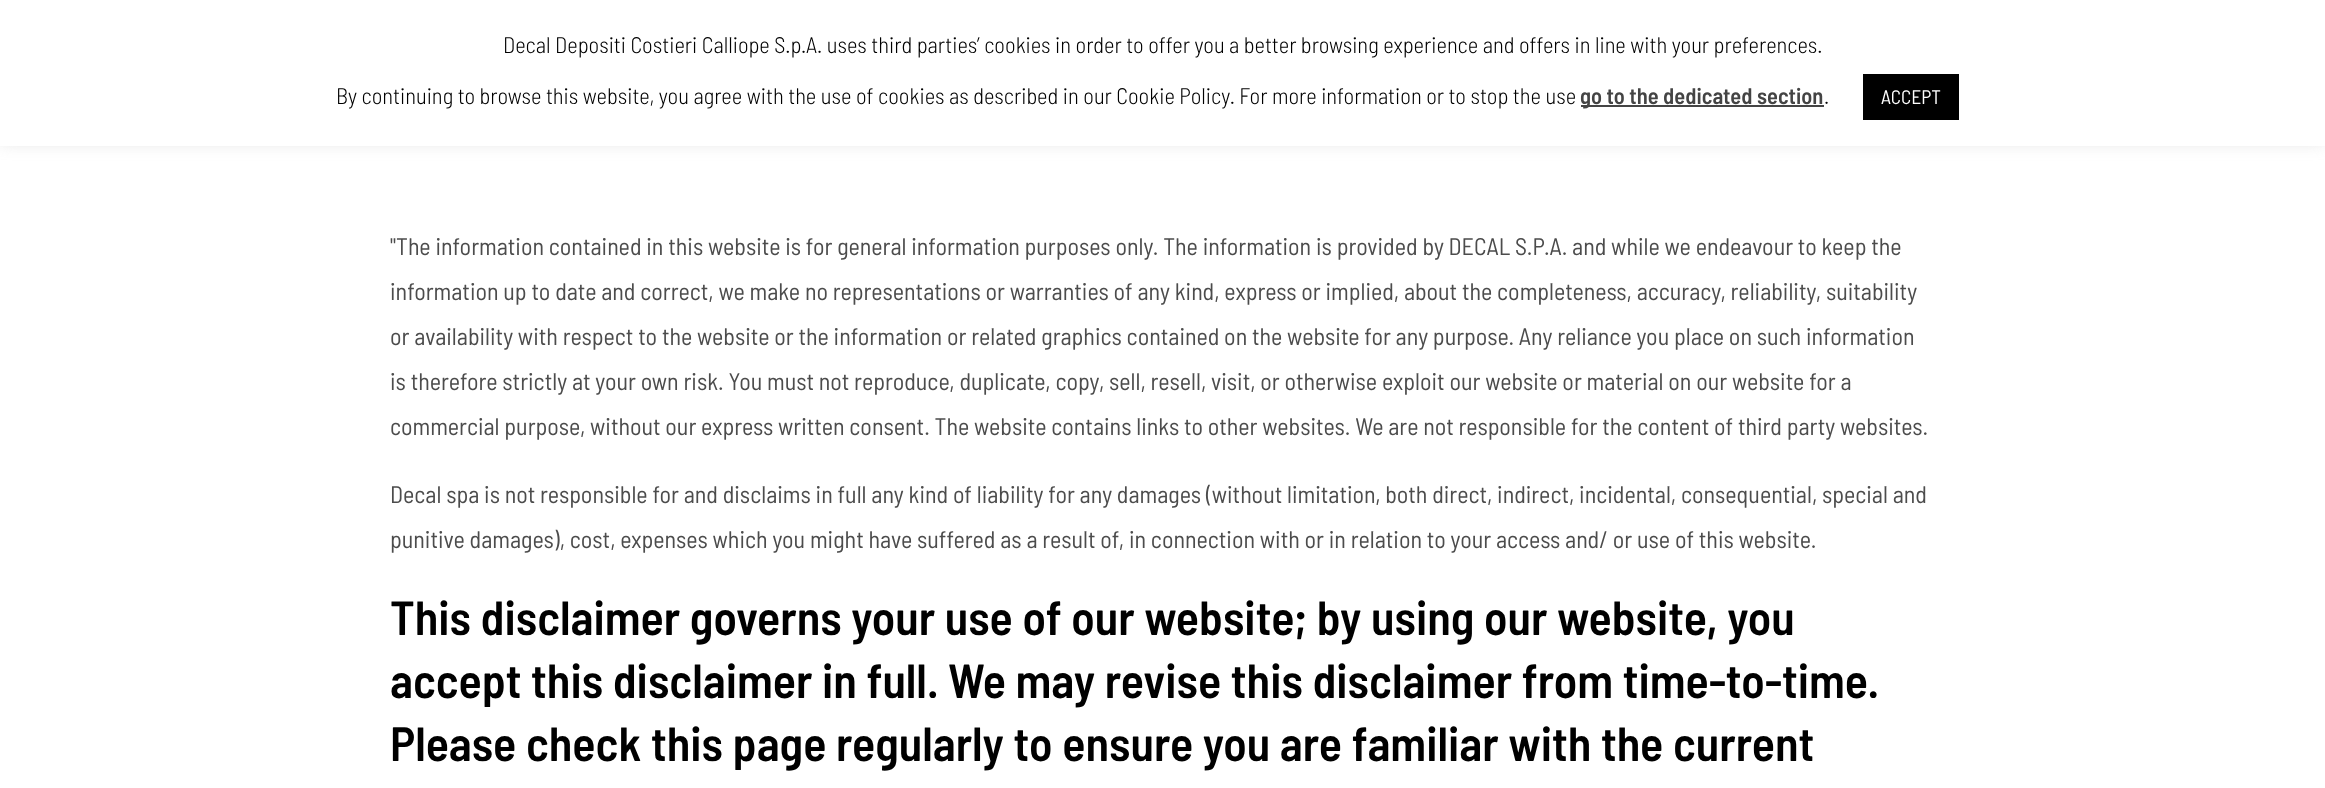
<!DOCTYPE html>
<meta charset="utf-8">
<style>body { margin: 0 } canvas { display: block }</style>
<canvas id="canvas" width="2325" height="788"></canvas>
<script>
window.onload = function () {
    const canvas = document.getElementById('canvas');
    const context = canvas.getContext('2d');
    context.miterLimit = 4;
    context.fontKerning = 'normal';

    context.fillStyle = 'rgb(255, 255, 255)';
    context.fillRect(0, 0, 2325, 788);
    context.fillStyle = 'rgba(172, 171, 171, 0.3)';
    context.filter = 'blur(7.5px)';
    context.beginPath();
    context.rect(0, -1, 2325, 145);
    context.fill();
    context.filter = 'none';
    context.fillStyle = 'rgb(255, 255, 255)';
    context.fillRect(0, 0, 2325, 146);
    context.fillStyle = 'rgb(68, 68, 68)';
    context.fillRect(1581, 105, 243, 2);
    context.fillStyle = 'rgb(0, 0, 0)';
    context.fillRect(1863, 74, 96, 46);
    context.font = '300 22.5px Barlow Semi Condensed';
    context.fillText('Decal Depositi Costieri Calliope S.p.A. uses third parties’ cookies in order to offer you a better browsing experience and offers in line with your preferences.', 503, 53);
    context.fillText('By continuing to browse this website, you agree with the use of cookies as described in our Cookie Policy. For more information or to stop the use', 336, 104);
    context.font = '600 22.5px Barlow Semi Condensed';
    context.fillStyle = 'rgb(68, 68, 68)';
    context.fillText('go to the dedicated section', 1580, 104);
    context.font = '300 22.5px Barlow Semi Condensed';
    context.fillStyle = 'rgb(0, 0, 0)';
    context.fillText('.', 1824, 104);
    context.font = '19.5px Barlow Semi Condensed';
    context.fillStyle = 'rgb(255, 255, 255)';
    context.fillText('ACCEPT', 1881, 104);
    context.font = '24px Barlow Semi Condensed';
    context.fillStyle = 'rgb(76, 76, 76)';
    context.fillText('"The information contained in this website is for general information purposes only. The information is provided by DECAL S.P.A. and while we endeavour to keep the', 390, 255);
    context.fillText('information up to date and correct, we make no representations or warranties of any kind, express or implied, about the completeness, accuracy, reliability, suitability', 390, 300);
    context.fillText('or availability with respect to the website or the information or related graphics contained on the website for any purpose. Any reliance you place on such information', 390, 345);
    context.fillText('is therefore strictly at your own risk. You must not reproduce, duplicate, copy, sell, resell, visit, or otherwise exploit our website or material on our website for a', 390, 390);
    context.fillText('commercial purpose, without our express written consent. The website contains links to other websites. We are not responsible for the content of third party websites.', 390, 435);
    context.fillText('Decal spa is not responsible for and disclaims in full any kind of liability for any damages (without limitation, both direct, indirect, incidental, consequential, special and', 390, 503);
    context.fillText('punitive damages), cost, expenses which you might have suffered as a result of, in connection with or in relation to your access and/ or use of this website.', 390, 548);
    context.font = '600 48px Barlow Semi Condensed';
    context.fillStyle = 'rgb(0, 0, 0)';
    context.fillText('This disclaimer governs your use of our website; by using our website, you', 390, 635);
    context.fillText('accept this disclaimer in full. We may revise this disclaimer from time-to-time.', 390, 698);
    context.fillText('Please check this page regularly to ensure you are familiar with the current', 390, 761);
};
</script>
